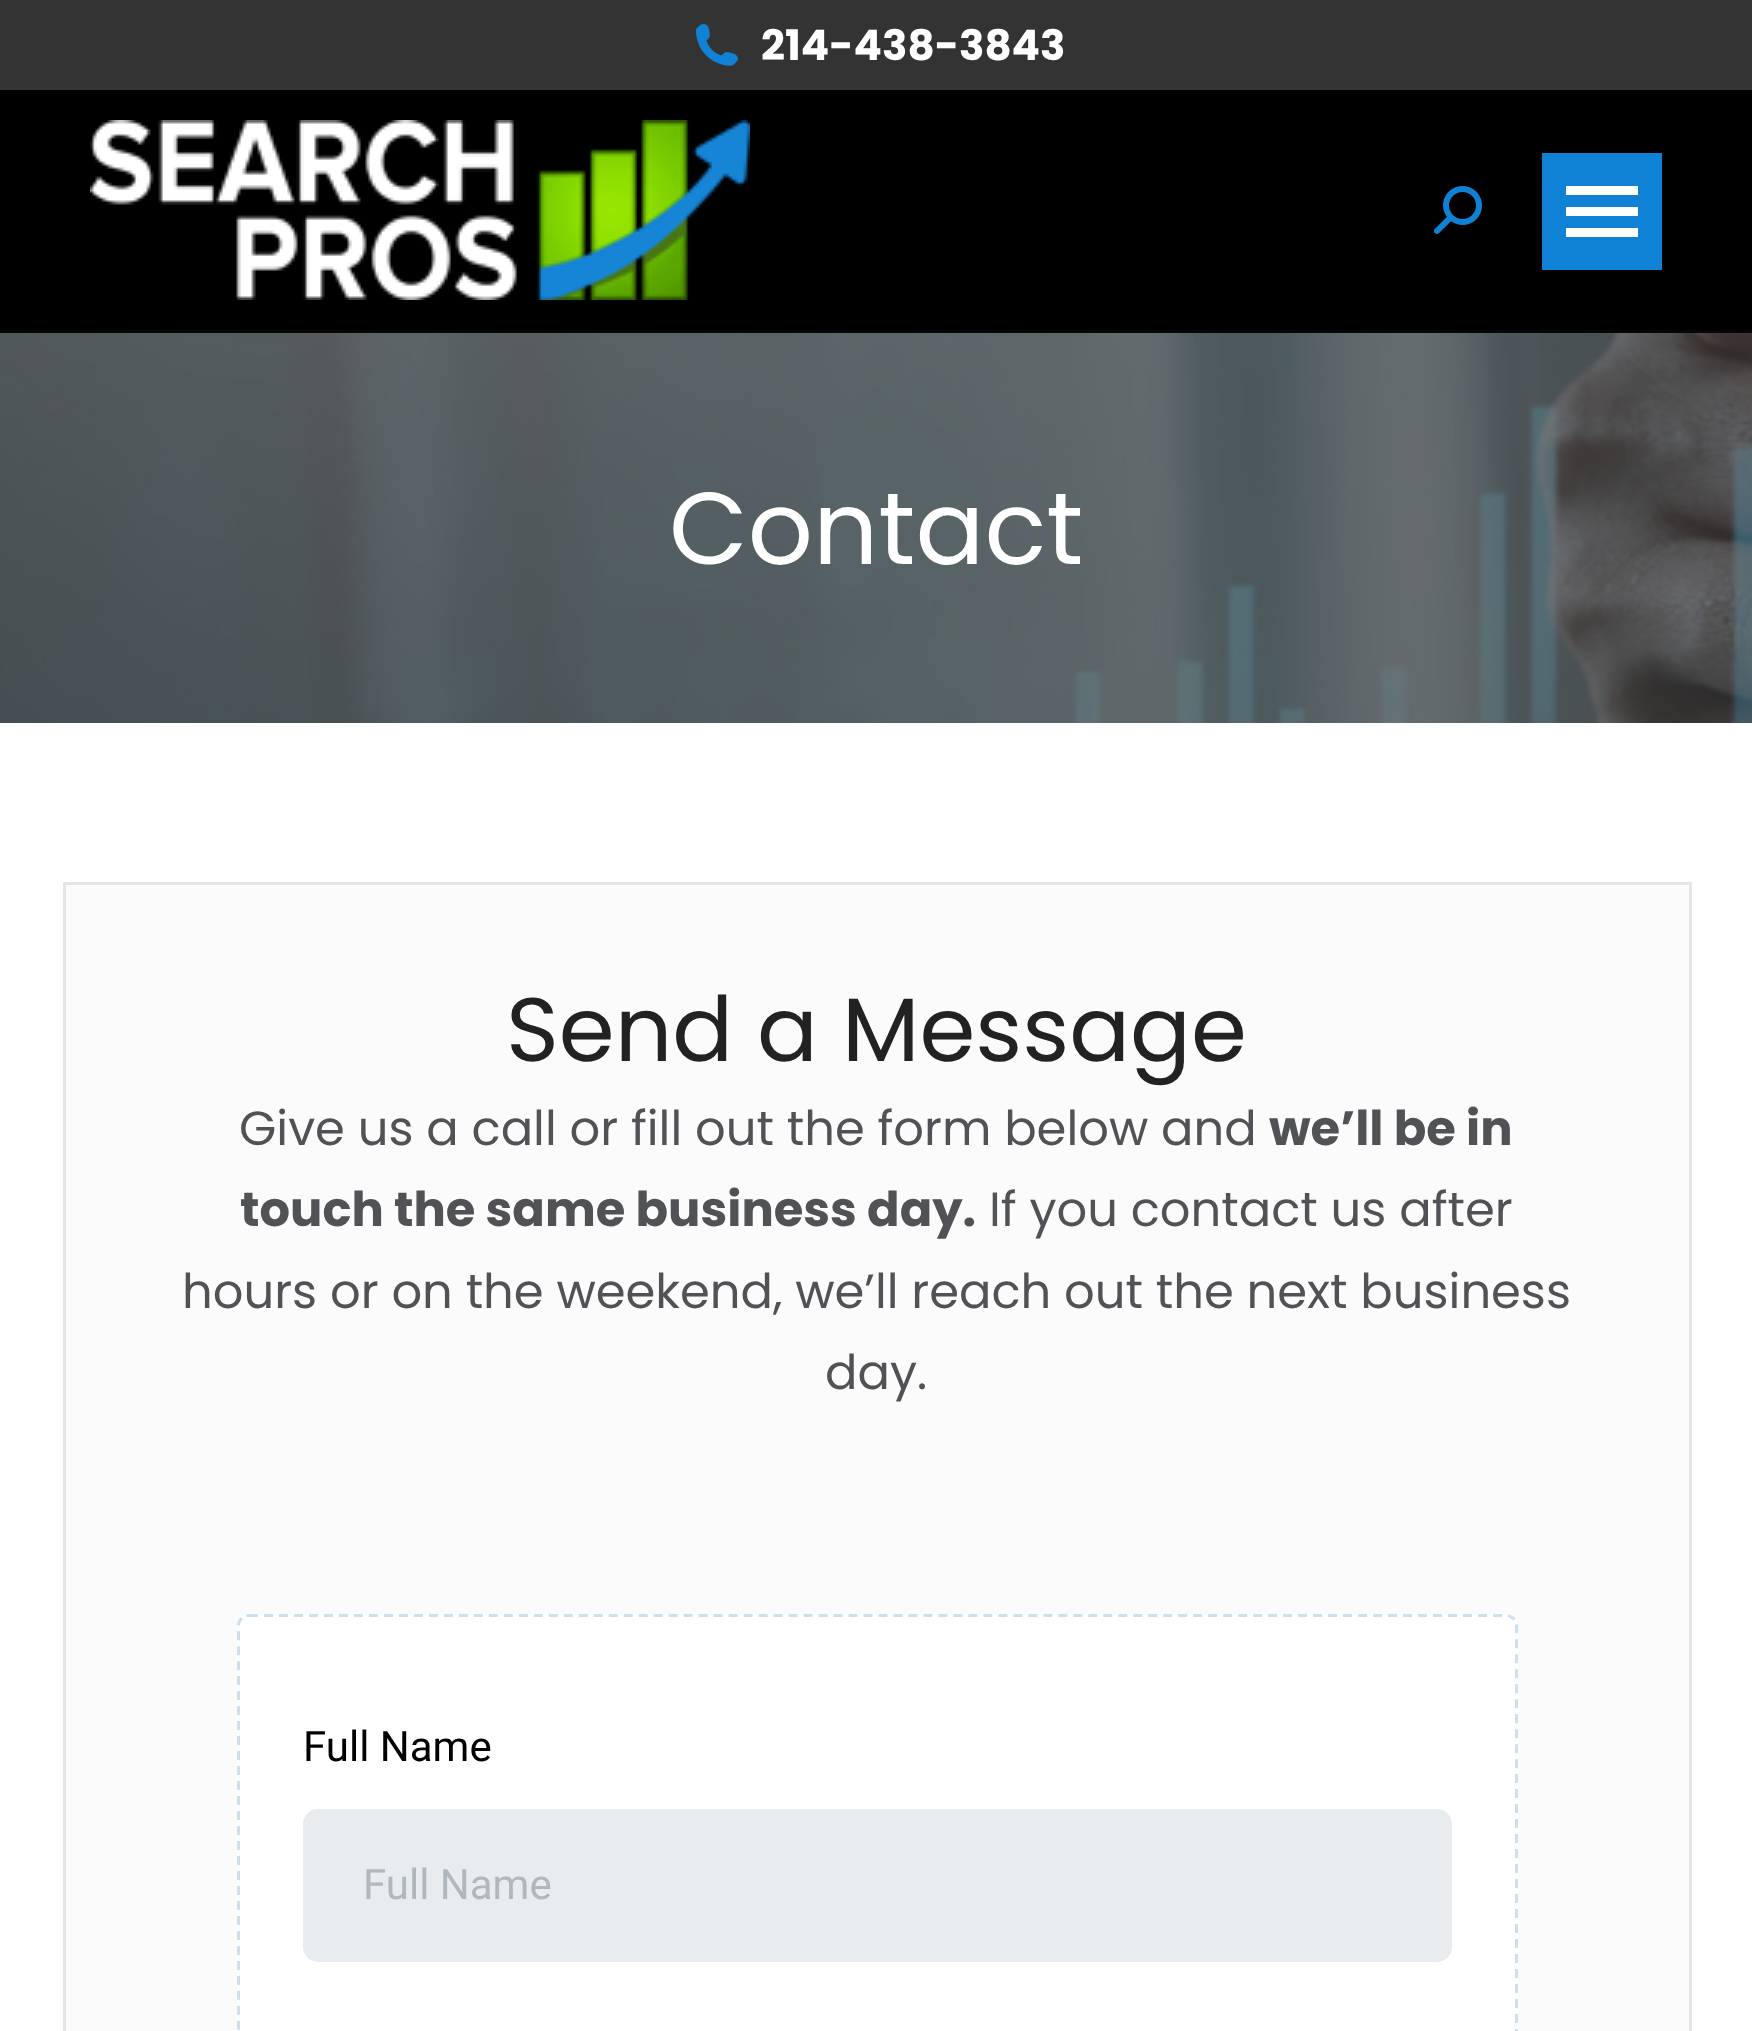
<!DOCTYPE html>
<meta charset="utf-8">
<style>body { margin: 0 } canvas { display: block }</style>
<canvas id="canvas" width="1752" height="2031"></canvas>
<img id="img1" src="images/1.png" hidden>
<img id="img2" src="images/2.png" hidden>
<img id="img3" src="images/3.png" hidden>
<img id="img4" src="images/4.png" hidden>
<img id="img5" src="images/5.png" hidden>
<script>
window.onload = function () {
    const canvas = document.getElementById('canvas');
    const context = canvas.getContext('2d');
    context.miterLimit = 4;
    context.fontKerning = 'normal';

    context.fillStyle = 'rgb(255, 255, 255)';
    context.fillRect(0, 0, 1752, 2031);
    context.fillStyle = 'rgb(0, 0, 0)';
    context.fillRect(0, 90, 1752, 240);
    context.fillStyle = 'rgb(6, 6, 6)';
    context.fillRect(0, 330, 1752, 3);
    context.fillStyle = 'rgb(51, 51, 51)';
    context.fillRect(0, 0, 1752, 90);
    context.drawImage(document.getElementById('img1'), 696, 24, 42, 42);
    context.drawImage(document.getElementById('img2'), 90, 120, 660, 180);
    context.drawImage(document.getElementById('img3'), 1434, 186, 48, 48);
    context.fillStyle = 'rgb(15, 130, 213)';
    context.fillRect(1542, 153, 120, 117);
    context.fillStyle = 'rgb(255, 255, 255)';
    context.fillRect(1566, 186, 72, 9);
    context.fillRect(1566, 207, 72, 9);
    context.fillRect(1566, 228, 72, 9);
    context.drawImage(document.getElementById('img4'), 0, 333, 1752, 390);
    context.fillStyle = 'rgb(251, 251, 251)';
    context.beginPath();
    context.rect(64.5, 883.5, 1626, 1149);
    context.fill();
    context.strokeStyle = 'rgb(230, 229, 229)';
    context.lineWidth = 3;
    context.stroke();
    context.drawImage(document.getElementById('img5'), 237, 1614, 1281, 417);
    context.font = 'bold 42px Poppins';
    context.fillStyle = 'rgb(255, 255, 255)';
    context.fillText('214-438-3843', 761, 60);
    context.font = '102px Poppins';
    context.fillText('Contact', 669, 564);
    context.font = '90px Poppins';
    context.fillStyle = 'rgb(34, 34, 34)';
    context.fillText('Send a Message', 506, 1061);
    context.font = '48px Poppins';
    context.fillStyle = 'rgb(81, 82, 86)';
    context.fillText('Give us a call or fill out the form below and', 239, 1145);
    context.font = 'bold 48px Poppins';
    context.fillText('we’ll be in', 1269, 1145);
    context.fillText('touch the same business day.', 240, 1226);
    context.font = '48px Poppins';
    context.fillText('If you contact us after', 989, 1226);
    context.fillText('hours or on the weekend, we’ll reach out the next business', 182, 1308);
    context.fillText('day.', 825, 1389);
};
</script>
